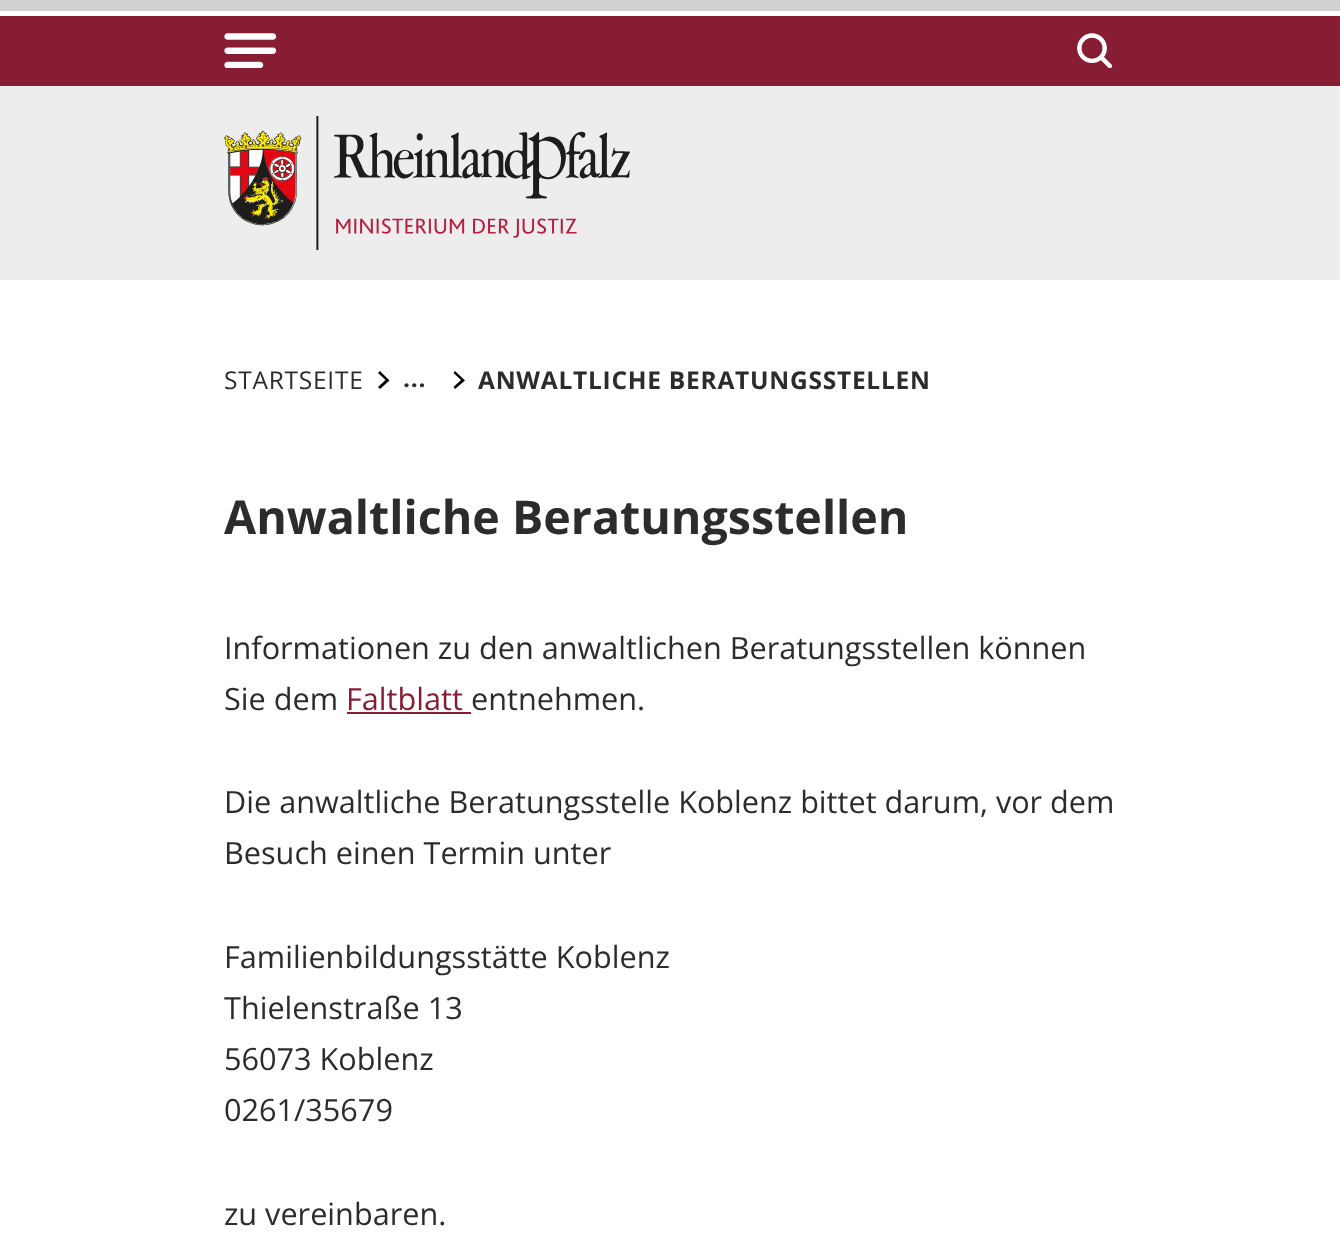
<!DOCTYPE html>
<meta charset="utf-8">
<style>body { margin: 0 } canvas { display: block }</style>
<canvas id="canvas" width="1340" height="1254"></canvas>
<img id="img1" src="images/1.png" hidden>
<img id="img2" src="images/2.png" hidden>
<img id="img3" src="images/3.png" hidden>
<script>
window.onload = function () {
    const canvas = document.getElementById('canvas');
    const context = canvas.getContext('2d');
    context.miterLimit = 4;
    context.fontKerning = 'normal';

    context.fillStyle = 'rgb(255, 255, 255)';
    context.fillRect(0, 0, 1340, 1254);
    context.fillStyle = 'rgb(208, 208, 208)';
    context.fillRect(0, 0, 1340, 11);
    context.fillStyle = 'rgb(135, 29, 51)';
    context.fillRect(0, 16, 1340, 70);
    context.drawImage(document.getElementById('img1'), 224, 33, 53, 35);
    context.drawImage(document.getElementById('img2'), 1077, 33, 36, 35);
    context.fillStyle = 'rgb(237, 237, 237)';
    context.fillRect(0, 86, 1340, 194);
    context.drawImage(document.getElementById('img3'), 224, 116, 406, 134);
    context.fillStyle = 'rgb(0, 0, 0)';
    context.beginPath();
    context.moveTo(380, 389);
    context.lineTo(389.5, 380.5);
    context.lineTo(380, 371);
    context.lineTo(378, 373);
    context.lineTo(385.5, 380);
    context.lineTo(378, 387);
    context.closePath();
    context.fill();
    context.beginPath();
    context.moveTo(455, 389);
    context.lineTo(465, 380.5);
    context.lineTo(455, 371);
    context.lineTo(453.5, 373);
    context.lineTo(461, 380);
    context.lineTo(453.5, 387);
    context.closePath();
    context.fill();
    context.fillStyle = 'rgb(135, 29, 51)';
    context.fillRect(347, 712, 124, 2);
    context.letterSpacing = '0.75px';
    context.font = '24.5px Open Sans';
    context.fillStyle = 'rgb(44, 44, 44)';
    context.fillText('STARTSEITE', 224, 389);
    context.font = 'bold 24.5px Open Sans';
    context.fillText('...', 403, 387);
    context.fillText('ANWALTLICHE BERATUNGSSTELLEN', 478, 389);
    context.letterSpacing = '0px';
    context.font = 'bold 46.6px Open Sans';
    context.fillText('Anwaltliche Beratungsstellen', 224, 534);
    context.font = '30.65px Open Sans';
    context.fillText('Informationen zu den anwaltlichen Beratungsstellen können', 224, 659);
    context.fillText('Sie dem', 224, 710);
    context.fillStyle = 'rgb(135, 29, 51)';
    context.fillText('Faltblatt', 346, 710);
    context.fillStyle = 'rgb(44, 44, 44)';
    context.fillText('entnehmen.', 471, 710);
    context.fillText('Die anwaltliche Beratungsstelle Koblenz bittet darum, vor dem', 224, 813);
    context.fillText('Besuch einen Termin unter', 224, 864);
    context.fillText('Familienbildungsstätte Koblenz', 224, 968);
    context.fillText('Thielenstraße 13', 224, 1019);
    context.fillText('56073 Koblenz', 224, 1070);
    context.fillText('0261/35679', 224, 1121);
    context.fillText('zu vereinbaren.', 224, 1225);
};
</script>
